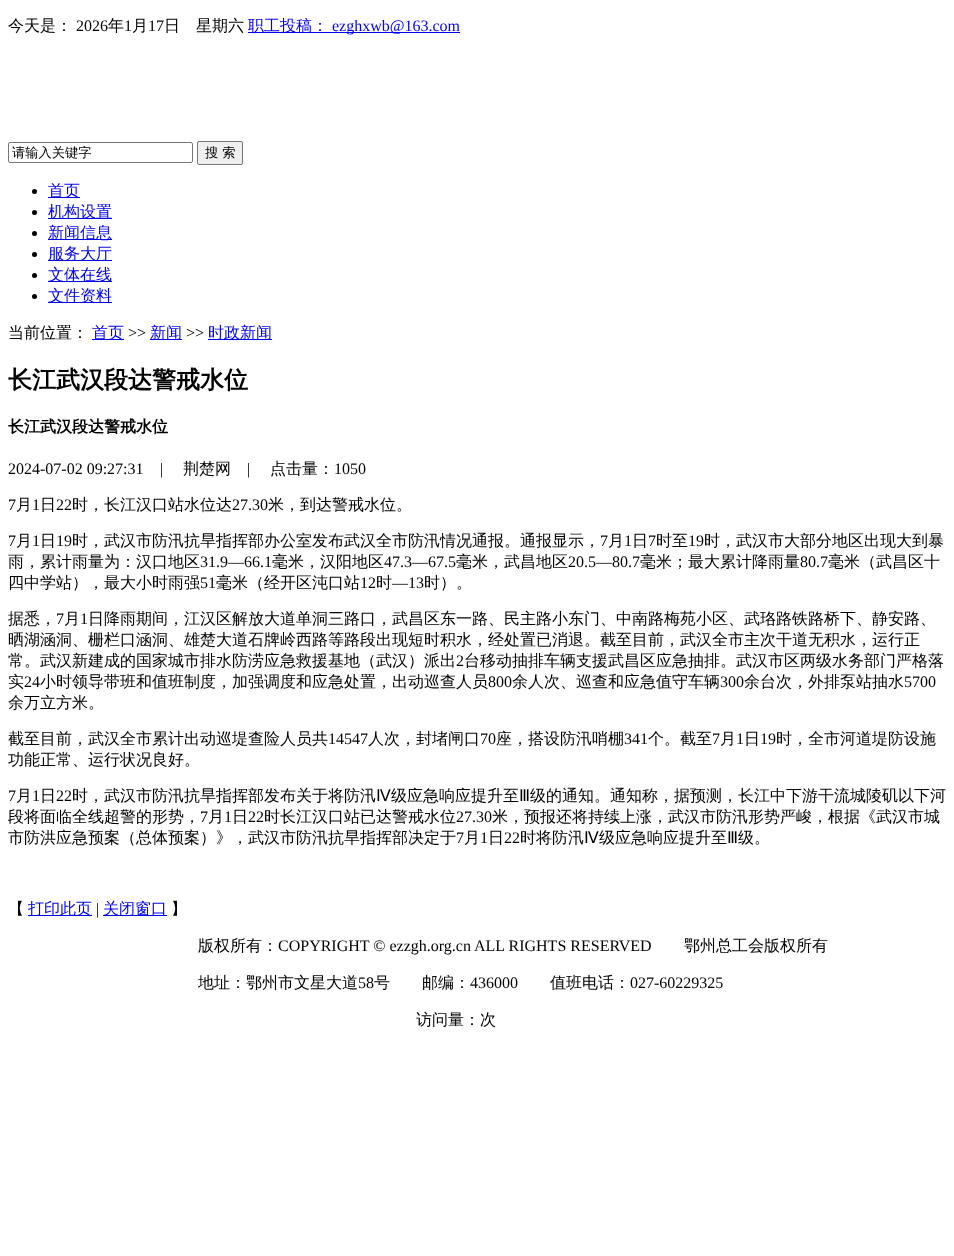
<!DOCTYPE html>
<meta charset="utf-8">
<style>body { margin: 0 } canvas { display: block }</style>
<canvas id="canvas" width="954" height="1256"></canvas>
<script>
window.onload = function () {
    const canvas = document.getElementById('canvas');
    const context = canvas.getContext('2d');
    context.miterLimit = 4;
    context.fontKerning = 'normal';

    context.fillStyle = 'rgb(255, 255, 255)';
    context.fillRect(0, 0, 954, 1256);
    context.fillStyle = 'rgb(0, 0, 238)';
    context.fillRect(248, 32, 212, 1);
    context.beginPath();
    context.roundRect(8.5, 142.5, 184, 20, 1.5);
    context.strokeStyle = 'rgb(118, 118, 118)';
    context.stroke();
    context.fillStyle = 'rgb(239, 239, 239)';
    context.beginPath();
    context.roundRect(197.5, 141.5, 45, 23, 1.5);
    context.fill();
    context.stroke();
    context.fillStyle = 'rgb(0, 0, 0)';
    context.beginPath();
    context.arc(34.5, 191.5, 2.5, 0, 2 * Math.PI);
    context.fill();
    context.fillStyle = 'rgb(0, 0, 238)';
    context.fillRect(48, 197, 32, 1);
    context.fillStyle = 'rgb(0, 0, 0)';
    context.beginPath();
    context.arc(34.5, 212.5, 2.5, 0, 2 * Math.PI);
    context.fill();
    context.fillStyle = 'rgb(0, 0, 238)';
    context.fillRect(48, 218, 64, 1);
    context.fillStyle = 'rgb(0, 0, 0)';
    context.beginPath();
    context.arc(34.5, 233.5, 2.5, 0, 2 * Math.PI);
    context.fill();
    context.fillStyle = 'rgb(0, 0, 238)';
    context.fillRect(48, 239, 64, 1);
    context.fillStyle = 'rgb(0, 0, 0)';
    context.beginPath();
    context.arc(34.5, 254.5, 2.5, 0, 2 * Math.PI);
    context.fill();
    context.fillStyle = 'rgb(0, 0, 238)';
    context.fillRect(48, 260, 64, 1);
    context.fillStyle = 'rgb(0, 0, 0)';
    context.beginPath();
    context.arc(34.5, 275.5, 2.5, 0, 2 * Math.PI);
    context.fill();
    context.fillStyle = 'rgb(0, 0, 238)';
    context.fillRect(48, 281, 64, 1);
    context.fillStyle = 'rgb(0, 0, 0)';
    context.beginPath();
    context.arc(34.5, 296.5, 2.5, 0, 2 * Math.PI);
    context.fill();
    context.fillStyle = 'rgb(0, 0, 238)';
    context.fillRect(48, 302, 64, 1);
    context.fillRect(92, 339, 32, 1);
    context.fillRect(150, 339, 32, 1);
    context.fillRect(208, 339, 64, 1);
    context.fillRect(28, 915, 64, 1);
    context.fillRect(103, 915, 64, 1);
    context.font = '500 16px WenQuanYi Zen Hei';
    context.fillStyle = 'rgb(0, 0, 0)';
    context.fillText('今天是：', 8, 31);
    context.font = '16px Liberation Serif';
    context.fillText('2026', 76, 31);
    context.font = '500 16px WenQuanYi Zen Hei';
    context.fillText('年', 108, 31);
    context.font = '16px Liberation Serif';
    context.fillText('1', 124, 31);
    context.font = '500 16px WenQuanYi Zen Hei';
    context.fillText('月', 132, 31);
    context.font = '16px Liberation Serif';
    context.fillText('17', 148, 31);
    context.font = '500 16px WenQuanYi Zen Hei';
    context.fillText('日　星期六', 164, 31);
    context.fillStyle = 'rgb(0, 0, 238)';
    context.fillText('职工投稿：', 248, 31);
    context.font = '16px Liberation Serif';
    context.fillText('ezghxwb@163.com', 332, 31);
    context.font = '500 13.25px WenQuanYi Zen Hei';
    context.fillStyle = 'rgb(0, 0, 0)';
    context.fillText('请输入关键字', 12, 157);
    context.fillText('搜 索', 205, 157);
    context.font = '500 16px WenQuanYi Zen Hei';
    context.fillStyle = 'rgb(0, 0, 238)';
    context.fillText('首页', 48, 196);
    context.fillText('机构设置', 48, 217);
    context.fillText('新闻信息', 48, 238);
    context.fillText('服务大厅', 48, 259);
    context.fillText('文体在线', 48, 280);
    context.fillText('文件资料', 48, 301);
    context.fillStyle = 'rgb(0, 0, 0)';
    context.fillText('当前位置：', 8, 338);
    context.fillStyle = 'rgb(0, 0, 238)';
    context.fillText('首页', 92, 338);
    context.font = '16px Liberation Serif';
    context.fillStyle = 'rgb(0, 0, 0)';
    context.fillText('>>', 128, 338);
    context.font = '500 16px WenQuanYi Zen Hei';
    context.fillStyle = 'rgb(0, 0, 238)';
    context.fillText('新闻', 150, 338);
    context.font = '16px Liberation Serif';
    context.fillStyle = 'rgb(0, 0, 0)';
    context.fillText('>>', 186, 338);
    context.font = '500 16px WenQuanYi Zen Hei';
    context.fillStyle = 'rgb(0, 0, 238)';
    context.fillText('时政新闻', 208, 338);
    context.font = 'bold 24px WenQuanYi Zen Hei';
    context.fillStyle = 'rgb(0, 0, 0)';
    context.fillText('长江武汉段达警戒水位', 8, 388);
    context.font = 'bold 16px WenQuanYi Zen Hei';
    context.fillText('长江武汉段达警戒水位', 8, 432);
    context.font = '16px Liberation Serif';
    context.fillText('2024-07-02 09:27:31', 8, 474);
    context.fillText('|', 160, 474);
    context.font = '500 16px WenQuanYi Zen Hei';
    context.fillText('荆楚网', 183, 474);
    context.font = '16px Liberation Serif';
    context.fillText('|', 247, 474);
    context.font = '500 16px WenQuanYi Zen Hei';
    context.fillText('点击量：', 270, 474);
    context.font = '16px Liberation Serif';
    context.fillText('1050', 334, 474);
    context.fillText('7', 8, 510);
    context.font = '500 16px WenQuanYi Zen Hei';
    context.fillText('月', 16, 510);
    context.font = '16px Liberation Serif';
    context.fillText('1', 32, 510);
    context.font = '500 16px WenQuanYi Zen Hei';
    context.fillText('日', 40, 510);
    context.font = '16px Liberation Serif';
    context.fillText('22', 56, 510);
    context.font = '500 16px WenQuanYi Zen Hei';
    context.fillText('时，长江汉口站水位达', 72, 510);
    context.font = '16px Liberation Serif';
    context.fillText('27.30', 232, 510);
    context.font = '500 16px WenQuanYi Zen Hei';
    context.fillText('米，到达警戒水位。', 268, 510);
    context.font = '16px Liberation Serif';
    context.fillText('7', 8, 546);
    context.font = '500 16px WenQuanYi Zen Hei';
    context.fillText('月', 16, 546);
    context.font = '16px Liberation Serif';
    context.fillText('1', 32, 546);
    context.font = '500 16px WenQuanYi Zen Hei';
    context.fillText('日', 40, 546);
    context.font = '16px Liberation Serif';
    context.fillText('19', 56, 546);
    context.font = '500 16px WenQuanYi Zen Hei';
    context.fillText('时，武汉市防汛抗旱指挥部办公室发布武汉全市防汛情况通报。通报显示，', 72, 546);
    context.font = '16px Liberation Serif';
    context.fillText('7', 600, 546);
    context.font = '500 16px WenQuanYi Zen Hei';
    context.fillText('月', 608, 546);
    context.font = '16px Liberation Serif';
    context.fillText('1', 624, 546);
    context.font = '500 16px WenQuanYi Zen Hei';
    context.fillText('日', 632, 546);
    context.font = '16px Liberation Serif';
    context.fillText('7', 648, 546);
    context.font = '500 16px WenQuanYi Zen Hei';
    context.fillText('时至', 656, 546);
    context.font = '16px Liberation Serif';
    context.fillText('19', 688, 546);
    context.font = '500 16px WenQuanYi Zen Hei';
    context.fillText('时，武汉市大部分地区出现大到暴', 704, 546);
    context.fillText('雨，累计雨量为：汉口地区', 8, 567);
    context.font = '16px Liberation Serif';
    context.fillText('31.9—66.1', 200, 567);
    context.font = '500 16px WenQuanYi Zen Hei';
    context.fillText('毫米，汉阳地区', 272, 567);
    context.font = '16px Liberation Serif';
    context.fillText('47.3—67.5', 384, 567);
    context.font = '500 16px WenQuanYi Zen Hei';
    context.fillText('毫米，武昌地区', 456, 567);
    context.font = '16px Liberation Serif';
    context.fillText('20.5—80.7', 568, 567);
    context.font = '500 16px WenQuanYi Zen Hei';
    context.fillText('毫米；最大累计降雨量', 640, 567);
    context.font = '16px Liberation Serif';
    context.fillText('80.7', 800, 567);
    context.font = '500 16px WenQuanYi Zen Hei';
    context.fillText('毫米（武昌区十', 828, 567);
    context.fillText('四中学站），最大小时雨强', 8, 588);
    context.font = '16px Liberation Serif';
    context.fillText('51', 200, 588);
    context.font = '500 16px WenQuanYi Zen Hei';
    context.fillText('毫米（经开区沌口站', 216, 588);
    context.font = '16px Liberation Serif';
    context.fillText('12', 360, 588);
    context.font = '500 16px WenQuanYi Zen Hei';
    context.fillText('时', 376, 588);
    context.font = '16px Liberation Serif';
    context.fillText('—13', 392, 588);
    context.font = '500 16px WenQuanYi Zen Hei';
    context.fillText('时）。', 424, 588);
    context.fillText('据悉，', 8, 624);
    context.font = '16px Liberation Serif';
    context.fillText('7', 56, 624);
    context.font = '500 16px WenQuanYi Zen Hei';
    context.fillText('月', 64, 624);
    context.font = '16px Liberation Serif';
    context.fillText('1', 80, 624);
    context.font = '500 16px WenQuanYi Zen Hei';
    context.fillText('日降雨期间，江汉区解放大道单洞三路口，武昌区东一路、民主路小东门、中南路梅苑小区、武珞路铁路桥下、静安路、', 88, 624);
    context.fillText('晒湖涵洞、栅栏口涵洞、雄楚大道石牌岭西路等路段出现短时积水，经处置已消退。截至目前，武汉全市主次干道无积水，运行正', 8, 645);
    context.fillText('常。武汉新建成的国家城市排水防涝应急救援基地（武汉）派出', 8, 666);
    context.font = '16px Liberation Serif';
    context.fillText('2', 456, 666);
    context.font = '500 16px WenQuanYi Zen Hei';
    context.fillText('台移动抽排车辆支援武昌区应急抽排。武汉市区两级水务部门严格落', 464, 666);
    context.fillText('实', 8, 687);
    context.font = '16px Liberation Serif';
    context.fillText('24', 24, 687);
    context.font = '500 16px WenQuanYi Zen Hei';
    context.fillText('小时领导带班和值班制度，加强调度和应急处置，出动巡查人员', 40, 687);
    context.font = '16px Liberation Serif';
    context.fillText('800', 488, 687);
    context.font = '500 16px WenQuanYi Zen Hei';
    context.fillText('余人次、巡查和应急值守车辆', 512, 687);
    context.font = '16px Liberation Serif';
    context.fillText('300', 720, 687);
    context.font = '500 16px WenQuanYi Zen Hei';
    context.fillText('余台次，外排泵站抽水', 744, 687);
    context.font = '16px Liberation Serif';
    context.fillText('5700', 904, 687);
    context.font = '500 16px WenQuanYi Zen Hei';
    context.fillText('余万立方米。', 8, 708);
    context.fillText('截至目前，武汉全市累计出动巡堤查险人员共', 8, 744);
    context.font = '16px Liberation Serif';
    context.fillText('14547', 328, 744);
    context.font = '500 16px WenQuanYi Zen Hei';
    context.fillText('人次，封堵闸口', 368, 744);
    context.font = '16px Liberation Serif';
    context.fillText('70', 480, 744);
    context.font = '500 16px WenQuanYi Zen Hei';
    context.fillText('座，搭设防汛哨棚', 496, 744);
    context.font = '16px Liberation Serif';
    context.fillText('341', 624, 744);
    context.font = '500 16px WenQuanYi Zen Hei';
    context.fillText('个。截至', 648, 744);
    context.font = '16px Liberation Serif';
    context.fillText('7', 712, 744);
    context.font = '500 16px WenQuanYi Zen Hei';
    context.fillText('月', 720, 744);
    context.font = '16px Liberation Serif';
    context.fillText('1', 736, 744);
    context.font = '500 16px WenQuanYi Zen Hei';
    context.fillText('日', 744, 744);
    context.font = '16px Liberation Serif';
    context.fillText('19', 760, 744);
    context.font = '500 16px WenQuanYi Zen Hei';
    context.fillText('时，全市河道堤防设施', 776, 744);
    context.fillText('功能正常、运行状况良好。', 8, 765);
    context.font = '16px Liberation Serif';
    context.fillText('7', 8, 801);
    context.font = '500 16px WenQuanYi Zen Hei';
    context.fillText('月', 16, 801);
    context.font = '16px Liberation Serif';
    context.fillText('1', 32, 801);
    context.font = '500 16px WenQuanYi Zen Hei';
    context.fillText('日', 40, 801);
    context.font = '16px Liberation Serif';
    context.fillText('22', 56, 801);
    context.font = '500 16px WenQuanYi Zen Hei';
    context.fillText('时，武汉市防汛抗旱指挥部发布关于将防汛', 72, 801);
    context.font = '16px DejaVu Sans';
    context.fillText('Ⅳ', 376, 801);
    context.font = '500 16px WenQuanYi Zen Hei';
    context.fillText('级应急响应提升至', 391, 801);
    context.font = '16px DejaVu Sans';
    context.fillText('Ⅲ', 519, 801);
    context.font = '500 16px WenQuanYi Zen Hei';
    context.fillText('级的通知。通知称，据预测，长江中下游干流城陵矶以下河', 530, 801);
    context.fillText('段将面临全线超警的形势，', 8, 822);
    context.font = '16px Liberation Serif';
    context.fillText('7', 200, 822);
    context.font = '500 16px WenQuanYi Zen Hei';
    context.fillText('月', 208, 822);
    context.font = '16px Liberation Serif';
    context.fillText('1', 224, 822);
    context.font = '500 16px WenQuanYi Zen Hei';
    context.fillText('日', 232, 822);
    context.font = '16px Liberation Serif';
    context.fillText('22', 248, 822);
    context.font = '500 16px WenQuanYi Zen Hei';
    context.fillText('时长江汉口站已达警戒水位', 264, 822);
    context.font = '16px Liberation Serif';
    context.fillText('27.30', 456, 822);
    context.font = '500 16px WenQuanYi Zen Hei';
    context.fillText('米，预报还将持续上涨，武汉市防汛形势严峻，根据《武汉市城', 492, 822);
    context.fillText('市防洪应急预案（总体预案）》，武汉市防汛抗旱指挥部决定于', 8, 843);
    context.font = '16px Liberation Serif';
    context.fillText('7', 456, 843);
    context.font = '500 16px WenQuanYi Zen Hei';
    context.fillText('月', 464, 843);
    context.font = '16px Liberation Serif';
    context.fillText('1', 480, 843);
    context.font = '500 16px WenQuanYi Zen Hei';
    context.fillText('日', 488, 843);
    context.font = '16px Liberation Serif';
    context.fillText('22', 504, 843);
    context.font = '500 16px WenQuanYi Zen Hei';
    context.fillText('时将防汛', 520, 843);
    context.font = '16px DejaVu Sans';
    context.fillText('Ⅳ', 584, 843);
    context.font = '500 16px WenQuanYi Zen Hei';
    context.fillText('级应急响应提升至', 599, 843);
    context.font = '16px DejaVu Sans';
    context.fillText('Ⅲ', 727, 843);
    context.font = '500 16px WenQuanYi Zen Hei';
    context.fillText('级。', 738, 843);
    context.fillText('【', 8, 914);
    context.fillStyle = 'rgb(0, 0, 238)';
    context.fillText('打印此页', 28, 914);
    context.font = '16px Liberation Serif';
    context.fillStyle = 'rgb(0, 0, 0)';
    context.fillText('|', 96, 914);
    context.font = '500 16px WenQuanYi Zen Hei';
    context.fillStyle = 'rgb(0, 0, 238)';
    context.fillText('关闭窗口', 103, 914);
    context.fillStyle = 'rgb(0, 0, 0)';
    context.fillText('】', 171, 914);
    context.fillText('版权所有：', 198, 951);
    context.font = '16px Liberation Serif';
    context.fillText('COPYRIGHT © ezzgh.org.cn ALL RIGHTS RESERVED', 278, 951);
    context.font = '500 16px WenQuanYi Zen Hei';
    context.fillText('鄂州总工会版权所有', 684, 951);
    context.fillText('地址：鄂州市文星大道', 198, 988);
    context.font = '16px Liberation Serif';
    context.fillText('58', 358, 988);
    context.font = '500 16px WenQuanYi Zen Hei';
    context.fillText('号', 374, 988);
    context.fillText('邮编：', 422, 988);
    context.font = '16px Liberation Serif';
    context.fillText('436000', 470, 988);
    context.font = '500 16px WenQuanYi Zen Hei';
    context.fillText('值班电话：', 550, 988);
    context.font = '16px Liberation Serif';
    context.fillText('027-60229325', 630, 988);
    context.font = '500 16px WenQuanYi Zen Hei';
    context.fillText('访问量：次', 416, 1025);
};
</script>
